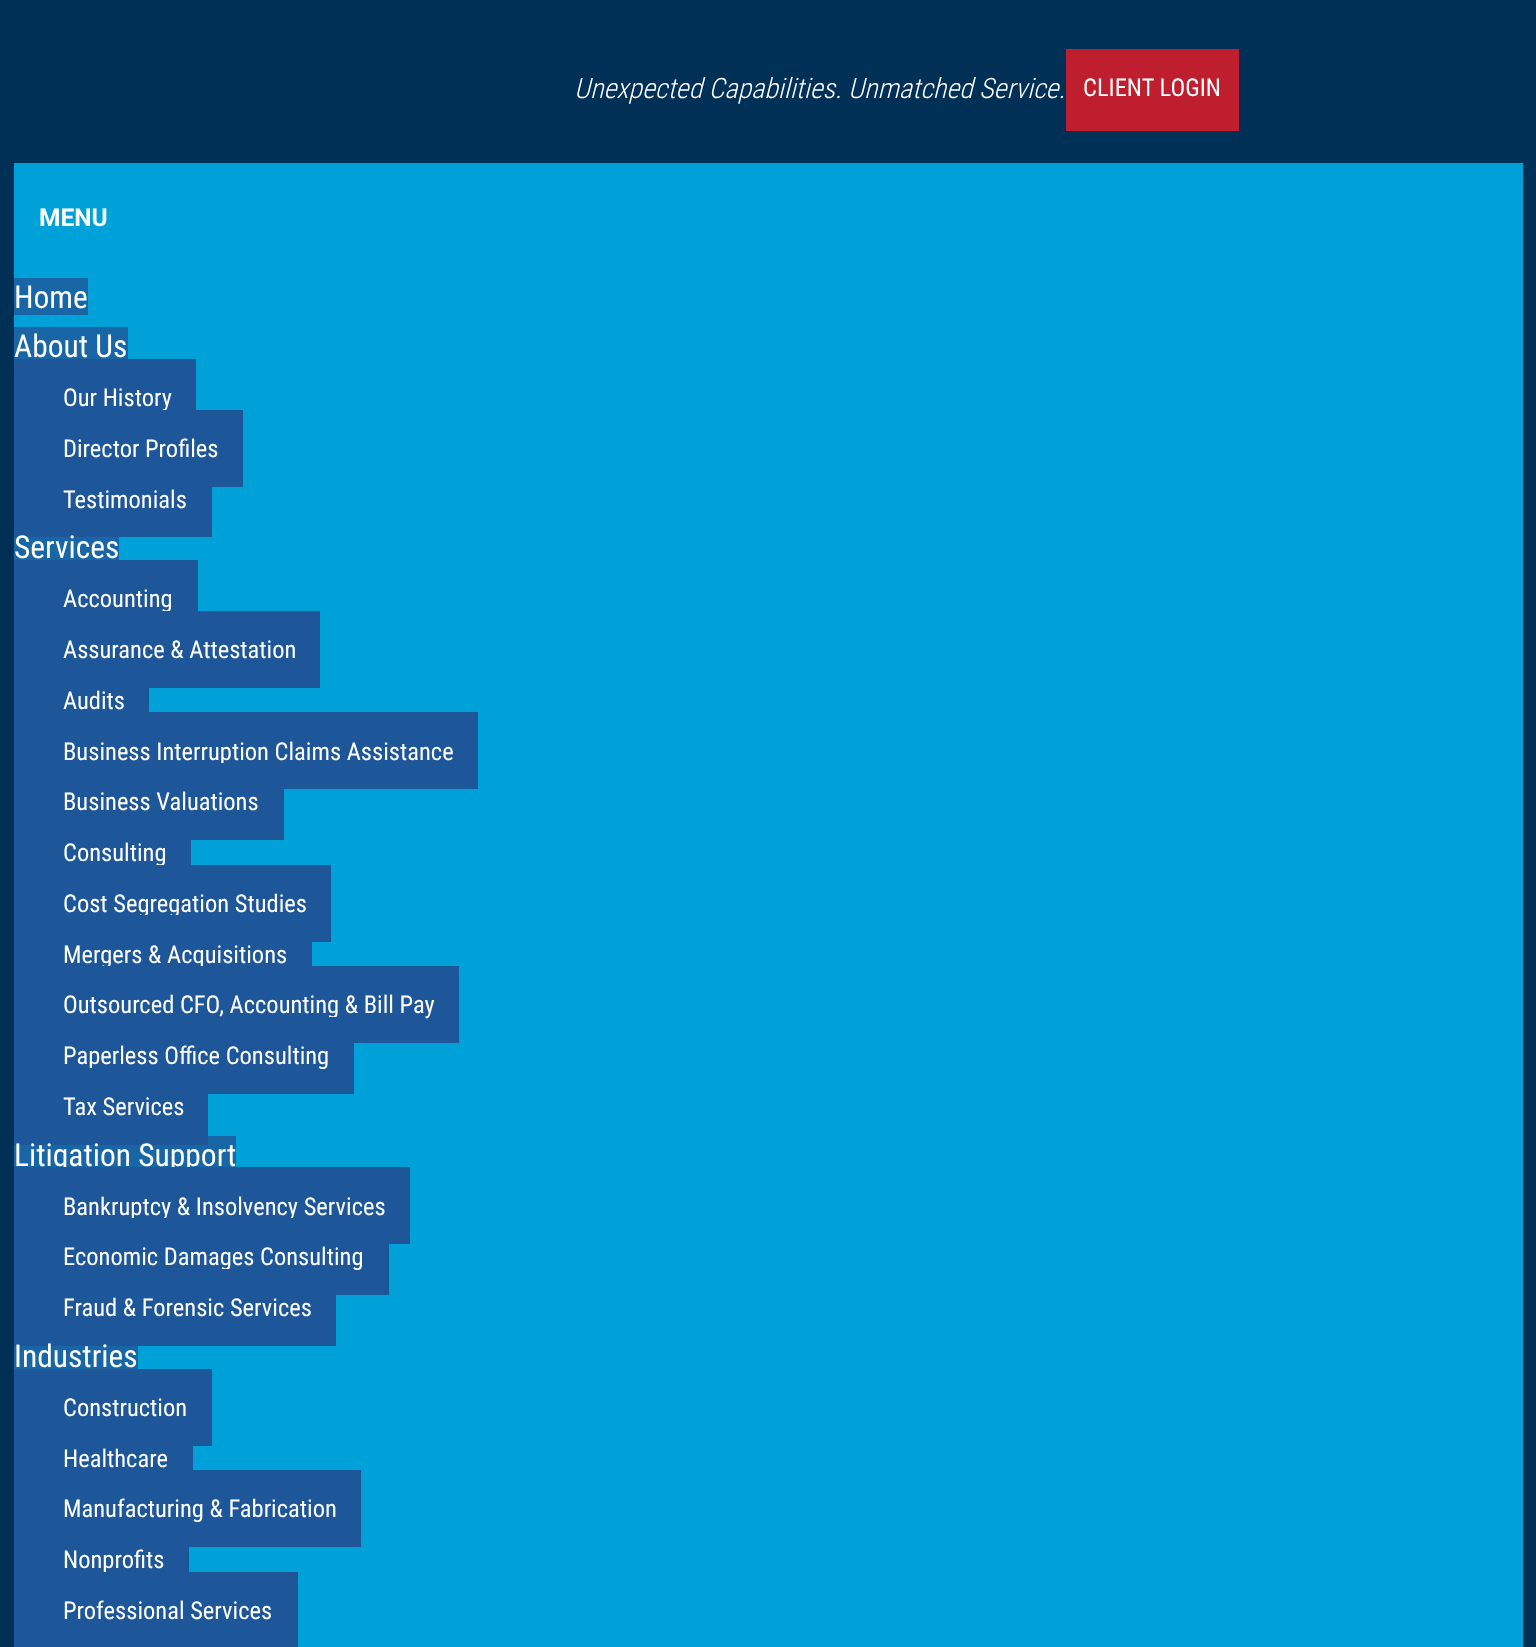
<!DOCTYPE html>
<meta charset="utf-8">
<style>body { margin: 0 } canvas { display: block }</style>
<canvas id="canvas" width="1536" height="1647"></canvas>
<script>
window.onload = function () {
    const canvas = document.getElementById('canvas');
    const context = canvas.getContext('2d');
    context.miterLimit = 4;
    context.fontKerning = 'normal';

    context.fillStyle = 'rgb(0, 48, 86)';
    context.fillRect(0, 0, 1536, 1647);
    context.fillStyle = 'rgb(190, 30, 45)';
    context.fillRect(1066, 49, 173, 82);
    context.fillStyle = 'rgb(0, 161, 217)';
    context.fillRect(14, 163, 1509, 1484);
    context.fillStyle = 'rgb(24, 102, 166)';
    context.fillRect(14, 1346, 124, 23);
    context.fillRect(14, 1136, 222, 31);
    context.fillRect(14, 537, 105, 23);
    context.fillRect(14, 278, 74, 37);
    context.fillRect(14, 327, 114, 32);
    context.fillStyle = 'rgb(30, 87, 153)';
    context.fillRect(14, 359, 182, 51);
    context.fillRect(14, 487, 198, 50);
    context.fillRect(14, 560, 184, 51);
    context.fillRect(14, 688, 135, 24);
    context.fillRect(14, 712, 464, 77);
    context.fillRect(14, 840, 177, 25);
    context.fillRect(14, 1369, 198, 77);
    context.fillRect(14, 1446, 179, 24);
    context.fillRect(14, 1470, 347, 77);
    context.fillRect(14, 1547, 175, 25);
    context.font = 'italic 300 28px Roboto Condensed';
    context.fillStyle = 'rgb(255, 255, 255)';
    context.fillText('Unexpected Capabilities. Unmatched Service.', 574, 98);
    context.font = '24.5px Roboto Condensed';
    context.fillText('CLIENT LOGIN', 1083, 96);
    context.font = 'bold 24.5px Roboto';
    context.fillText('MENU', 39, 226);
    context.font = '31.5px Roboto Condensed';
    context.fillText('Home', 14, 308);
    context.fillText('About Us', 14, 357);
    context.font = '24.5px Roboto Condensed';
    context.fillText('Our History', 63, 406);
    context.fillStyle = 'rgb(30, 87, 153)';
    context.fillRect(14, 410, 229, 77);
    context.fillStyle = 'rgb(255, 255, 255)';
    context.fillText('Director Profiles', 63, 457);
    context.fillText('Testimonials', 63, 508);
    context.font = '31.5px Roboto Condensed';
    context.fillText('Services', 14, 558);
    context.font = '24.5px Roboto Condensed';
    context.fillText('Accounting', 63, 607);
    context.fillStyle = 'rgb(30, 87, 153)';
    context.fillRect(14, 611, 306, 77);
    context.fillStyle = 'rgb(255, 255, 255)';
    context.fillText('Assurance & Attestation', 63, 658);
    context.fillText('Audits', 63, 709);
    context.fillText('Business Interruption Claims Assistance', 63, 760);
    context.fillStyle = 'rgb(30, 87, 153)';
    context.fillRect(14, 763, 270, 77);
    context.fillStyle = 'rgb(255, 255, 255)';
    context.fillText('Business Valuations', 63, 810);
    context.fillText('Consulting', 63, 861);
    context.fillStyle = 'rgb(30, 87, 153)';
    context.fillRect(14, 865, 317, 77);
    context.fillStyle = 'rgb(255, 255, 255)';
    context.fillText('Cost Segregation Studies', 63, 912);
    context.fillStyle = 'rgb(30, 87, 153)';
    context.fillRect(14, 915, 298, 51);
    context.fillStyle = 'rgb(255, 255, 255)';
    context.fillText('Mergers & Acquisitions', 63, 963);
    context.fillStyle = 'rgb(30, 87, 153)';
    context.fillRect(14, 966, 445, 77);
    context.fillStyle = 'rgb(255, 255, 255)';
    context.fillText('Outsourced CFO, Accounting & Bill Pay', 63, 1013);
    context.fillStyle = 'rgb(30, 87, 153)';
    context.fillRect(14, 1017, 340, 77);
    context.fillStyle = 'rgb(255, 255, 255)';
    context.fillText('Paperless Office Consulting', 63, 1064);
    context.fillStyle = 'rgb(30, 87, 153)';
    context.fillRect(14, 1068, 194, 77);
    context.fillStyle = 'rgb(255, 255, 255)';
    context.fillText('Tax Services', 63, 1115);
    context.font = '31.5px Roboto Condensed';
    context.fillText('Litigation Support', 14, 1166);
    context.fillStyle = 'rgb(30, 87, 153)';
    context.fillRect(14, 1167, 396, 77);
    context.font = '24.5px Roboto Condensed';
    context.fillStyle = 'rgb(255, 255, 255)';
    context.fillText('Bankruptcy & Insolvency Services', 63, 1215);
    context.fillStyle = 'rgb(30, 87, 153)';
    context.fillRect(14, 1218, 375, 77);
    context.fillStyle = 'rgb(255, 255, 255)';
    context.fillText('Economic Damages Consulting', 63, 1265);
    context.fillStyle = 'rgb(30, 87, 153)';
    context.fillRect(14, 1269, 322, 77);
    context.fillStyle = 'rgb(255, 255, 255)';
    context.fillText('Fraud & Forensic Services', 63, 1316);
    context.font = '31.5px Roboto Condensed';
    context.fillText('Industries', 14, 1367);
    context.font = '24.5px Roboto Condensed';
    context.fillText('Construction', 63, 1416);
    context.fillText('Healthcare', 63, 1467);
    context.fillText('Manufacturing & Fabrication', 63, 1517);
    context.fillText('Nonprofits', 63, 1568);
    context.fillStyle = 'rgb(30, 87, 153)';
    context.fillRect(14, 1572, 284, 75);
    context.fillStyle = 'rgb(255, 255, 255)';
    context.fillText('Professional Services', 63, 1619);
};
</script>
